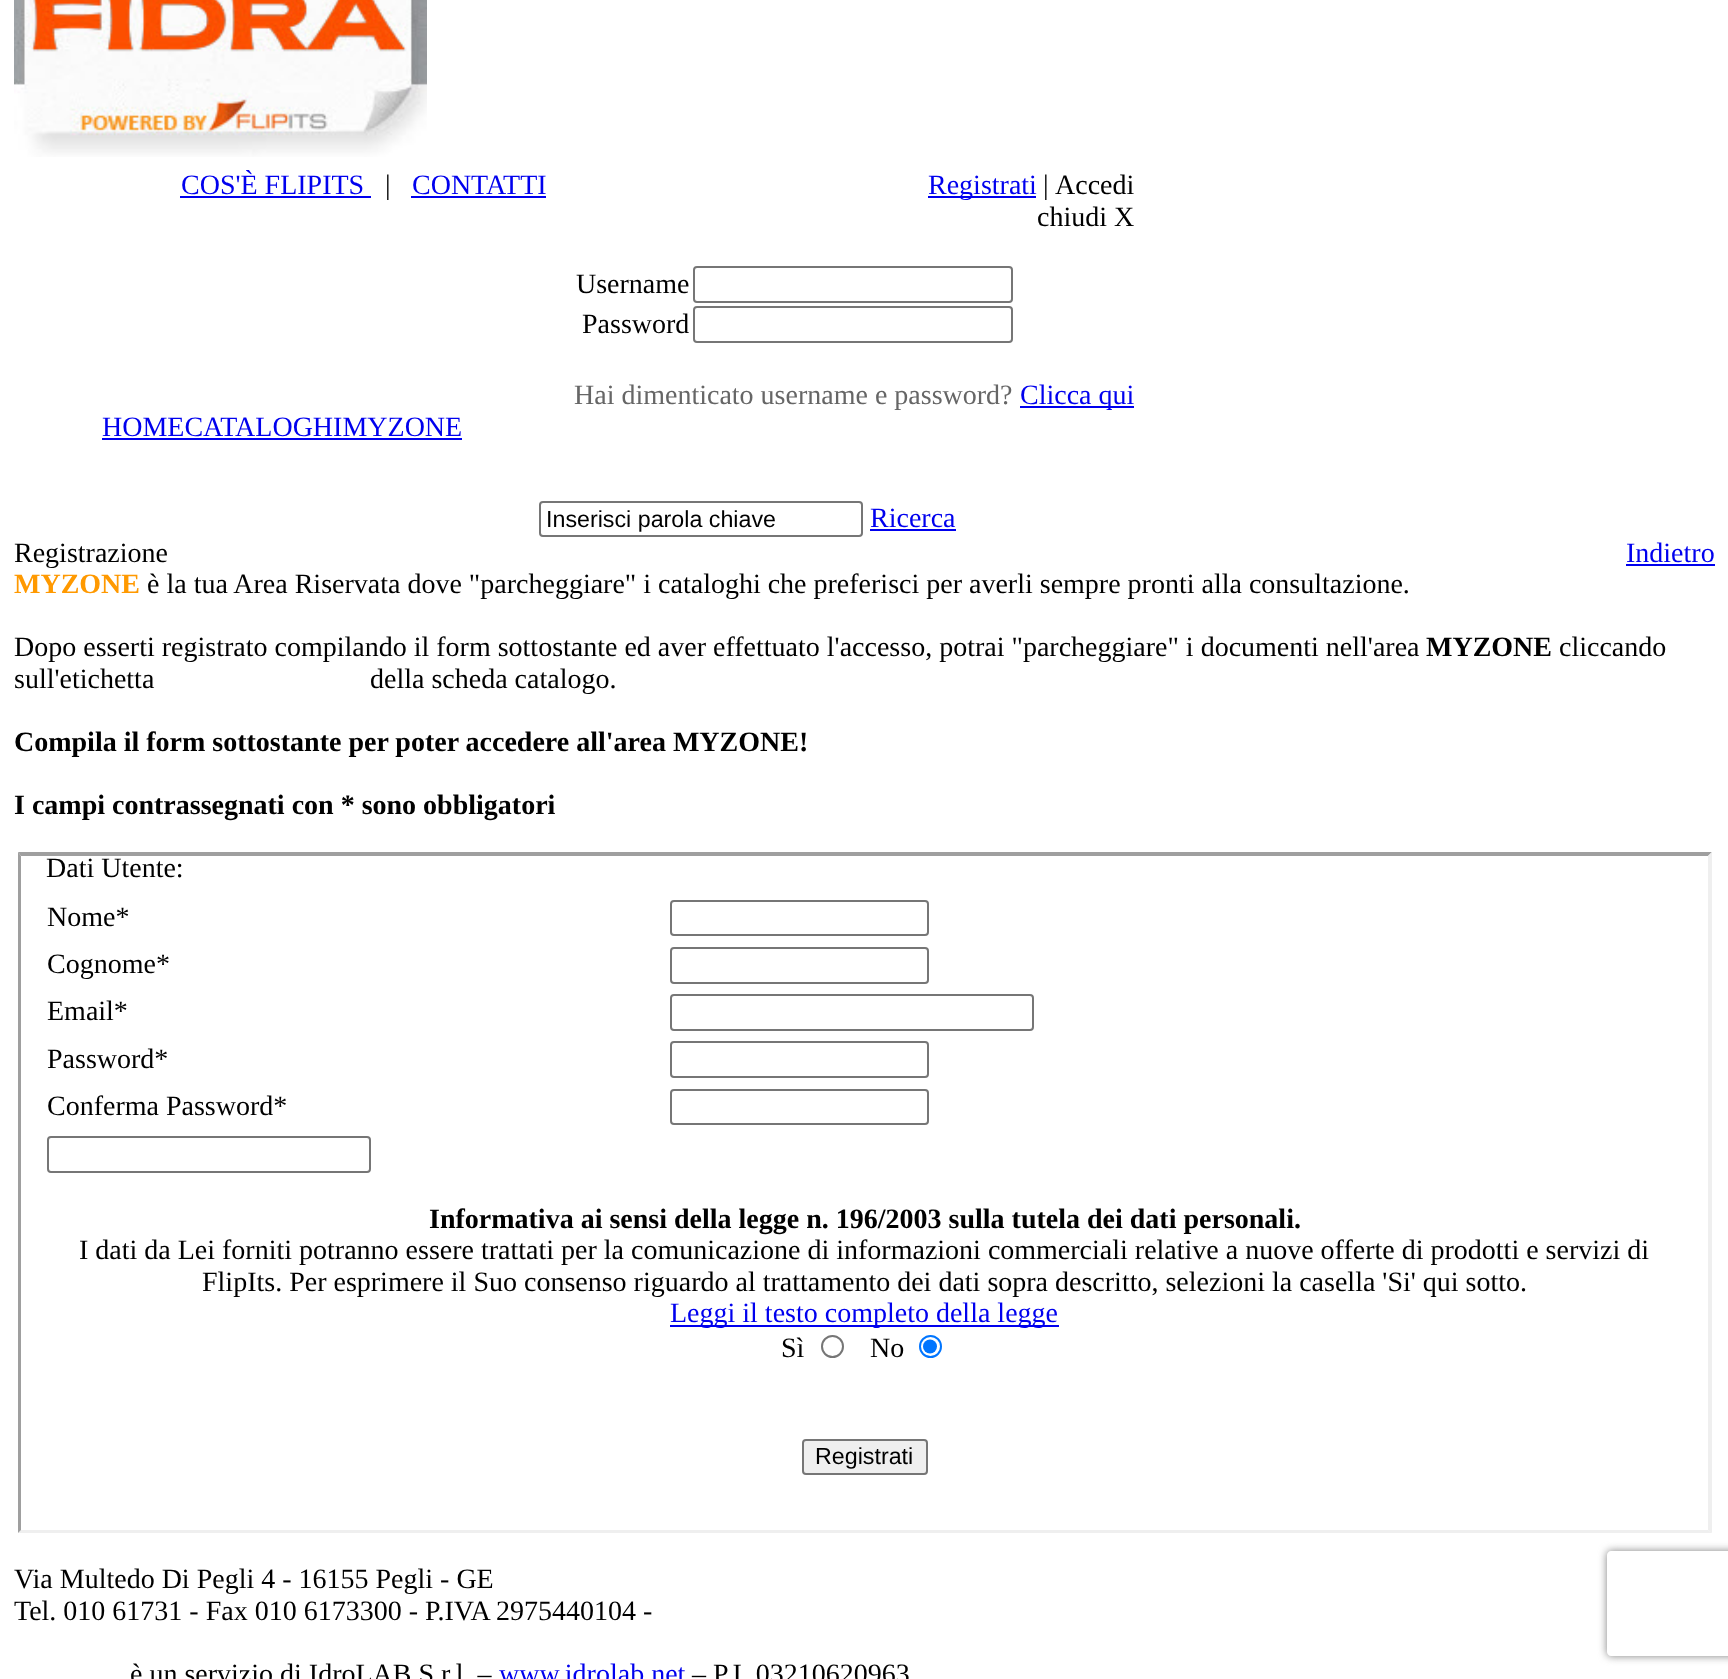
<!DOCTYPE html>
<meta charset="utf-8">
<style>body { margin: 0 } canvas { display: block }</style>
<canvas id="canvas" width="1728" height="1679"></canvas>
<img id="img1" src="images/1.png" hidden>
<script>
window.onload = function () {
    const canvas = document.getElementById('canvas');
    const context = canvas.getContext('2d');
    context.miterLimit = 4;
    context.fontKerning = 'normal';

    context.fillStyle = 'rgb(255, 255, 255)';
    context.fillRect(0, 0, 1728, 1679);
    context.drawImage(document.getElementById('img1'), 14, 0, 413, 157);
    context.fillStyle = 'rgb(0, 0, 238)';
    context.fillRect(180, 196, 191, 2);
    context.fillRect(411, 196, 135, 2);
    context.fillRect(928, 196, 108, 2);
    context.beginPath();
    context.roundRect(694, 267, 318, 35, 3);
    context.strokeStyle = 'rgb(118, 118, 118)';
    context.lineWidth = 2;
    context.stroke();
    context.beginPath();
    context.roundRect(694, 307, 318, 35, 3);
    context.stroke();
    context.fillRect(1020, 406, 114, 2);
    context.fillRect(102, 438, 360, 2);
    context.beginPath();
    context.roundRect(540, 502, 322, 34, 3);
    context.stroke();
    context.fillRect(870, 529, 86, 2);
    context.fillRect(1626, 564, 89, 2);
    context.fillStyle = 'rgb(159, 159, 159)';
    context.beginPath();
    context.moveTo(18, 852);
    context.lineTo(1712, 852);
    context.lineTo(1708, 856);
    context.lineTo(21, 856);
    context.closePath();
    context.fill();
    context.fillStyle = 'rgb(239, 239, 239)';
    context.beginPath();
    context.moveTo(1712, 852);
    context.lineTo(1712, 1533);
    context.lineTo(1708, 1530);
    context.lineTo(1708, 856);
    context.closePath();
    context.fill();
    context.beginPath();
    context.moveTo(1712, 1533);
    context.lineTo(18, 1533);
    context.lineTo(21, 1530);
    context.lineTo(1708, 1530);
    context.closePath();
    context.fill();
    context.fillStyle = 'rgb(159, 159, 159)';
    context.beginPath();
    context.moveTo(18, 1533);
    context.lineTo(18, 852);
    context.lineTo(21, 856);
    context.lineTo(21, 1530);
    context.closePath();
    context.fill();
    context.beginPath();
    context.roundRect(671, 901, 257, 34, 3);
    context.stroke();
    context.beginPath();
    context.roundRect(671, 948, 257, 35, 3);
    context.stroke();
    context.beginPath();
    context.roundRect(671, 995, 362, 35, 3);
    context.stroke();
    context.beginPath();
    context.roundRect(671, 1042, 257, 35, 3);
    context.stroke();
    context.beginPath();
    context.roundRect(671, 1090, 257, 34, 3);
    context.stroke();
    context.beginPath();
    context.roundRect(48, 1137, 322, 35, 3);
    context.stroke();
    context.fillStyle = 'rgb(0, 0, 238)';
    context.fillRect(670, 1325, 389, 2);
    context.beginPath();
    context.arc(832.5, 1346.5, 10.5, 0, 2 * Math.PI);
    context.stroke();
    context.beginPath();
    context.arc(930.5, 1346.5, 10.5, 0, 2 * Math.PI);
    context.strokeStyle = 'rgb(0, 117, 255)';
    context.stroke();
    context.fillStyle = 'rgb(0, 117, 255)';
    context.beginPath();
    context.arc(930, 1346.5, 7, 0, 2 * Math.PI);
    context.fill();
    context.fillStyle = 'rgb(239, 239, 239)';
    context.beginPath();
    context.roundRect(803, 1440, 124, 34, 3);
    context.fill();
    context.strokeStyle = 'rgb(118, 118, 118)';
    context.stroke();
    context.save();
    context.beginPath();
    context.moveTo(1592, 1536);
    context.lineTo(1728, 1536);
    context.lineTo(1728, 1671);
    context.lineTo(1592, 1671);
    context.closePath();
    context.moveTo(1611, 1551);
    context.lineTo(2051, 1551);
    context.bezierCurveTo(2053, 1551, 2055, 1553, 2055, 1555);
    context.lineTo(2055, 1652);
    context.bezierCurveTo(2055, 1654, 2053, 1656, 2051, 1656);
    context.lineTo(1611, 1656);
    context.bezierCurveTo(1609, 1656, 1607, 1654, 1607, 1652);
    context.lineTo(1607, 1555);
    context.bezierCurveTo(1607, 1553, 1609, 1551, 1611, 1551);
    context.closePath();
    context.clip('evenodd');
    context.fillStyle = 'rgb(128, 128, 128)';
    context.filter = 'blur(4.5px)';
    context.beginPath();
    context.roundRect(1607, 1551, 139, 105, 4);
    context.fill();
    context.filter = 'none';
    context.restore();
    context.font = '28px Liberation Serif';
    context.fillStyle = 'rgb(0, 0, 238)';
    context.fillText('COS\'È FLIPITS', 181, 194);
    context.fillStyle = 'rgb(0, 0, 0)';
    context.fillText('|', 385, 194);
    context.fillStyle = 'rgb(0, 0, 238)';
    context.fillText('CONTATTI', 412, 194);
    context.fillText('Registrati', 928, 194);
    context.fillStyle = 'rgb(0, 0, 0)';
    context.fillText('|', 1043, 194);
    context.fillText('Accedi', 1055, 194);
    context.fillText('chiudi X', 1037, 226);
    context.fillText('Username', 576, 293);
    context.fillText('Password', 582, 333);
    context.fillStyle = 'rgb(102, 102, 102)';
    context.fillText('Hai dimenticato username e password?', 574, 404);
    context.fillStyle = 'rgb(0, 0, 238)';
    context.fillText('Clicca qui', 1020, 404);
    context.fillText('HOMECATALOGHIMYZONE', 102, 436);
    context.font = '23.25px Liberation Sans';
    context.fillStyle = 'rgb(0, 0, 0)';
    context.fillText('Inserisci parola chiave', 546, 527);
    context.font = '28px Liberation Serif';
    context.fillStyle = 'rgb(0, 0, 238)';
    context.fillText('Ricerca', 870, 527);
    context.fillStyle = 'rgb(0, 0, 0)';
    context.fillText('Registrazione', 14, 562);
    context.fillStyle = 'rgb(0, 0, 238)';
    context.fillText('Indietro', 1626, 562);
    context.font = 'bold 28px Liberation Serif';
    context.fillStyle = 'rgb(255, 153, 0)';
    context.fillText('MYZONE', 14, 593);
    context.font = '28px Liberation Serif';
    context.fillStyle = 'rgb(0, 0, 0)';
    context.fillText('è la tua Area Riservata dove "parcheggiare" i cataloghi che preferisci per averli sempre pronti alla consultazione.', 147, 593);
    context.fillText('Dopo esserti registrato compilando il form sottostante ed aver effettuato l\'accesso, potrai "parcheggiare" i documenti nell\'area', 14, 656);
    context.font = 'bold 28px Liberation Serif';
    context.fillText('MYZONE', 1426, 656);
    context.font = '28px Liberation Serif';
    context.fillText('cliccando', 1559, 656);
    context.fillText('sull\'etichetta', 14, 688);
    context.fillText('della scheda catalogo.', 370, 688);
    context.font = 'bold 28px Liberation Serif';
    context.fillText('Compila il form sottostante per poter accedere all\'area MYZONE!', 14, 751);
    context.fillText('I campi contrassegnati con * sono obbligatori', 14, 814);
    context.font = '28px Liberation Serif';
    context.fillText('Dati Utente:', 46, 877);
    context.fillText('Nome*', 47, 926);
    context.fillText('Cognome*', 47, 973);
    context.fillText('Email*', 47, 1020);
    context.fillText('Password*', 47, 1068);
    context.fillText('Conferma Password*', 47, 1115);
    context.font = 'bold 28px Liberation Serif';
    context.fillText('Informativa ai sensi della legge n. 196/2003 sulla tutela dei dati personali.', 429, 1228);
    context.font = '28px Liberation Serif';
    context.fillText('I dati da Lei forniti potranno essere trattati per la comunicazione di informazioni commerciali relative a nuove offerte di prodotti e servizi di', 79, 1259);
    context.fillText('FlipIts. Per esprimere il Suo consenso riguardo al trattamento dei dati sopra descritto, selezioni la casella \'Si\' qui sotto.', 202, 1291);
    context.fillStyle = 'rgb(0, 0, 238)';
    context.fillText('Leggi il testo completo della legge', 670, 1322);
    context.fillStyle = 'rgb(0, 0, 0)';
    context.fillText('Sì', 781, 1357);
    context.fillText('No', 870, 1357);
    context.font = '23.25px Liberation Sans';
    context.fillText('Registrati', 815, 1464);
    context.font = '28px Liberation Serif';
    context.fillText('Via Multedo Di Pegli 4 - 16155 Pegli - GE', 14, 1588);
    context.fillText('Tel. 010 61731 - Fax 010 6173300 - P.IVA 2975440104 -', 14, 1620);
    context.fillText('è un servizio di IdroLAB S.r.l. –', 130, 1683);
    context.fillStyle = 'rgb(0, 0, 238)';
    context.fillText('www.idrolab.net', 499, 1683);
    context.fillStyle = 'rgb(0, 0, 0)';
    context.fillText('– P.I. 03210620963', 692, 1683);
};
</script>
